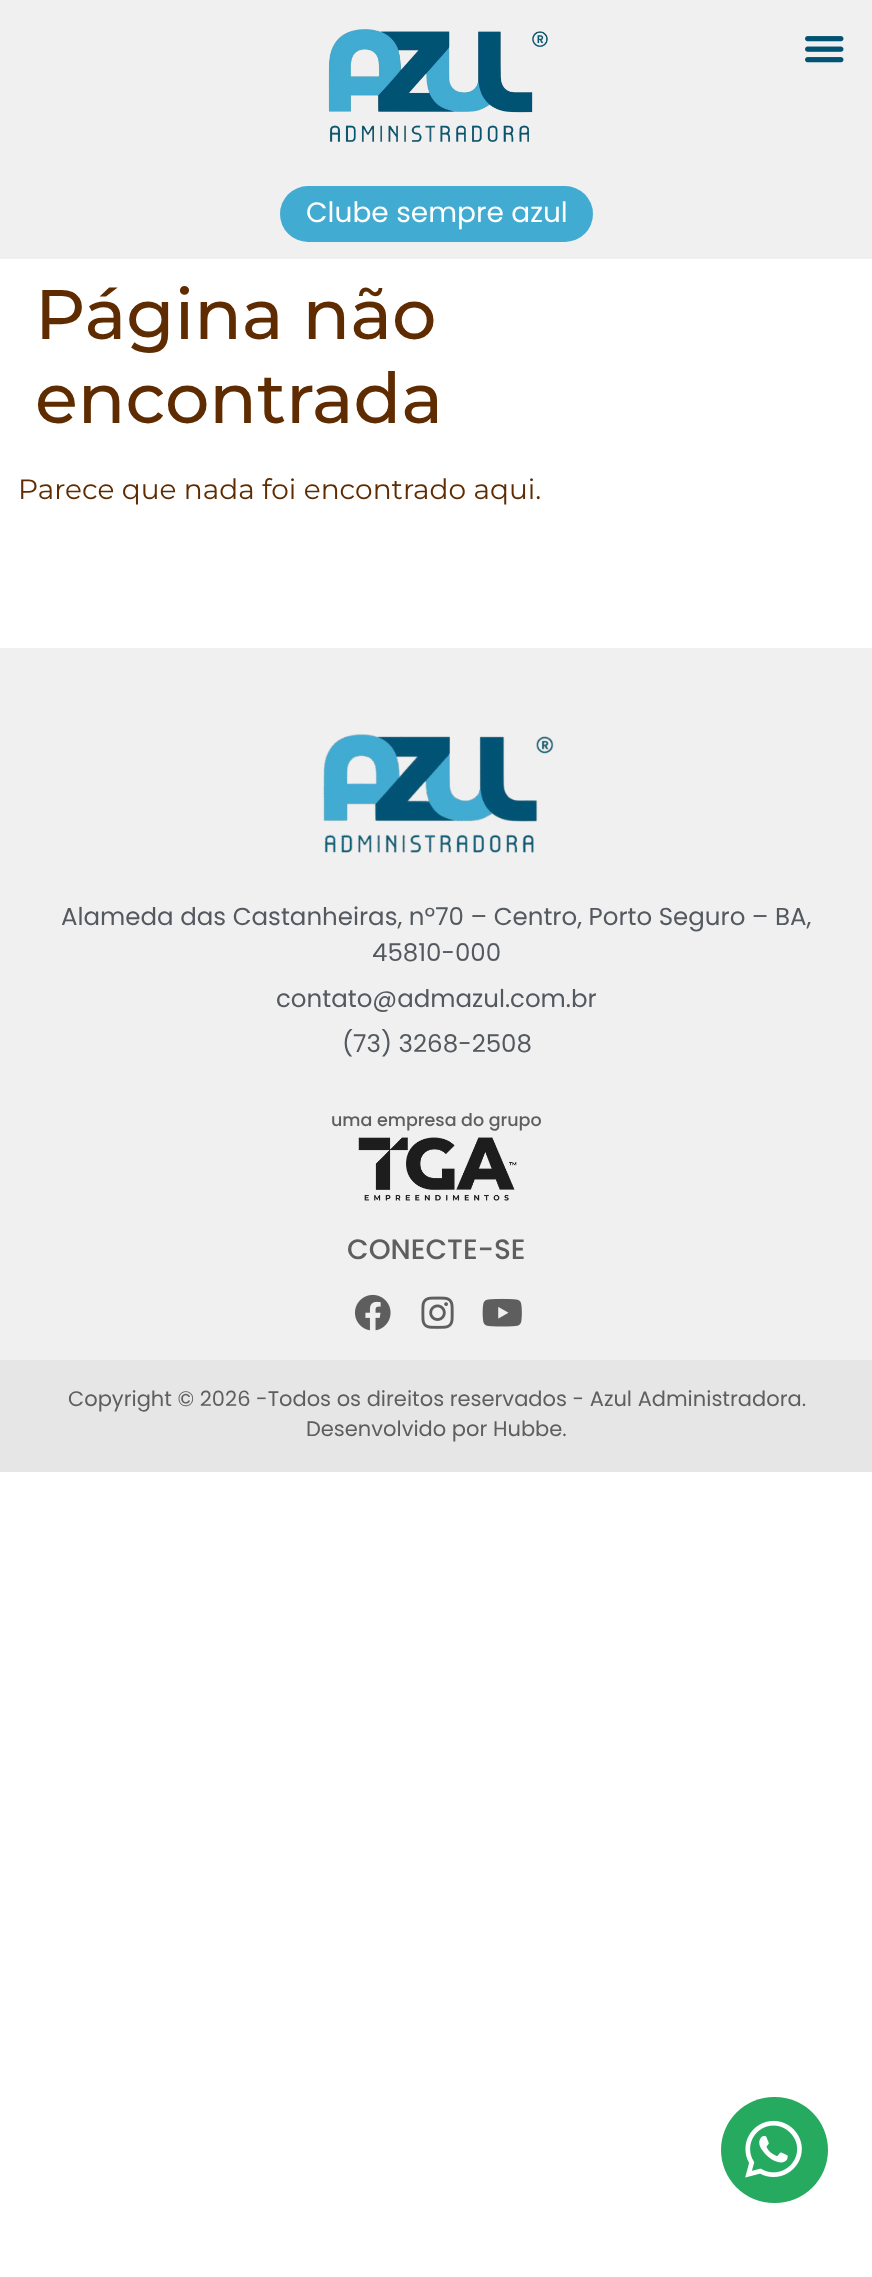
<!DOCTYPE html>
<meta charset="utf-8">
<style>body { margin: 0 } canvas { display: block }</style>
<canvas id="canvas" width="872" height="2277"></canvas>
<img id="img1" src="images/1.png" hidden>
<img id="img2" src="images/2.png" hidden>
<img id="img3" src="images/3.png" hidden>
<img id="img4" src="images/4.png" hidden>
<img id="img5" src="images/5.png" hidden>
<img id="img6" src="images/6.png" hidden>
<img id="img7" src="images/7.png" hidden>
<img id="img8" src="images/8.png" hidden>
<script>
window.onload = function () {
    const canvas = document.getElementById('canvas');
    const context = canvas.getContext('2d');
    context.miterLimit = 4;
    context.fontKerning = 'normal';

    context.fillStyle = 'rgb(255, 255, 255)';
    context.fillRect(0, 0, 872, 2277);
    context.fillStyle = 'rgb(240, 240, 240)';
    context.fillRect(0, 0, 872, 259);
    context.drawImage(document.getElementById('img1'), 328, 29, 220, 113);
    context.drawImage(document.getElementById('img2'), 805, 36, 39, 27);
    context.fillStyle = 'rgb(65, 171, 210)';
    context.beginPath();
    context.roundRect(280, 186, 313, 56, 28);
    context.fill();
    context.fillStyle = 'rgb(240, 240, 240)';
    context.fillRect(0, 648, 872, 712);
    context.drawImage(document.getElementById('img3'), 323, 734, 231, 119);
    context.drawImage(document.getElementById('img4'), 358, 1137, 159, 64);
    context.drawImage(document.getElementById('img5'), 354, 1294, 37, 37);
    context.drawImage(document.getElementById('img6'), 421, 1296, 33, 33);
    context.drawImage(document.getElementById('img7'), 482, 1298, 40, 29);
    context.fillStyle = 'rgb(38, 170, 96)';
    context.beginPath();
    context.roundRect(721, 2097, 107, 106, 53);
    context.fill();
    context.drawImage(document.getElementById('img8'), 745, 2120, 57, 58);
    context.fillStyle = 'rgb(230, 230, 230)';
    context.fillRect(0, 1360, 872, 112);
    context.font = '28px Poppins';
    context.fillStyle = 'rgb(255, 255, 255)';
    context.fillText('Clube sempre azul', 306, 222);
    context.font = '500 70px Montserrat';
    context.fillStyle = 'rgb(95, 44, 1)';
    context.fillText('Página não', 35, 339);
    context.fillText('encontrada', 35, 423);
    context.font = '28px Montserrat';
    context.fillText('Parece que nada foi encontrado aqui.', 18, 499);
    context.font = '24.5px Poppins';
    context.fillStyle = 'rgb(84, 89, 95)';
    context.fillText('Alameda das Castanheiras, nº70 – Centro, Porto Seguro – BA,', 61, 925);
    context.fillText('45810-000', 372, 961);
    context.fillText('contato@admazul.com.br', 276, 1007);
    context.fillText('(73) 3268-2508', 342, 1052);
    context.font = '500 17.5px Poppins';
    context.fillStyle = 'rgb(94, 94, 94)';
    context.fillText('uma empresa do grupo', 331, 1126);
    context.font = '500 28px Poppins';
    context.fillText('CONECTE-SE', 347, 1259);
    context.font = '21px Poppins';
    context.fillText('Copyright © 2026 -Todos os direitos reservados - Azul Administradora.', 68, 1406);
    context.fillText('Desenvolvido por Hubbe.', 306, 1436);
};
</script>
